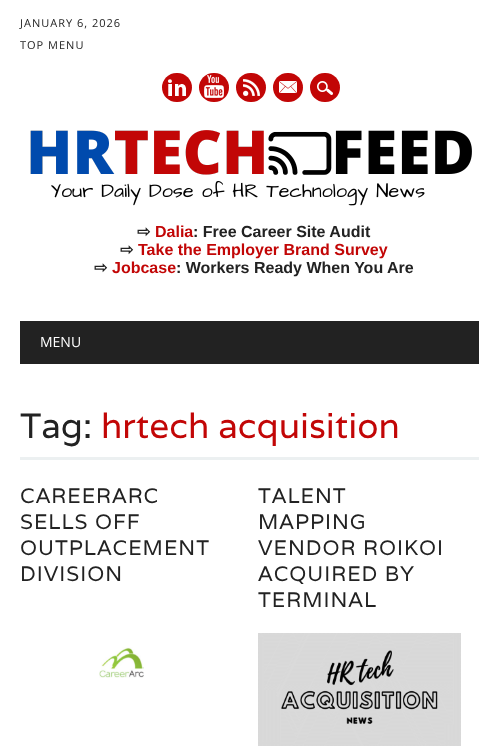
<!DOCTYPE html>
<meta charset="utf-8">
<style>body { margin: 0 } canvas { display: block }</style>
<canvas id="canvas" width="499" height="755"></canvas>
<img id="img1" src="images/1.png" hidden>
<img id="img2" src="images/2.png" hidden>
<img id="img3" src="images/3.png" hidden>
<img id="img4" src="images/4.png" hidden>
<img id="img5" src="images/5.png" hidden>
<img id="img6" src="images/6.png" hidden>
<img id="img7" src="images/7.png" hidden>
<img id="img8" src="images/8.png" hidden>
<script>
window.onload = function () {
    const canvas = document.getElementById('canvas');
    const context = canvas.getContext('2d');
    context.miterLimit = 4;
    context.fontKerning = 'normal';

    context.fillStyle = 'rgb(255, 255, 255)';
    context.fillRect(0, 0, 499, 755);
    context.fillStyle = 'rgb(194, 6, 6)';
    context.beginPath();
    context.roundRect(162, 73, 30, 29, 14.5);
    context.fill();
    context.drawImage(document.getElementById('img1'), 168, 79, 18, 17);
    context.beginPath();
    context.roundRect(199, 73, 30, 29, 14.5);
    context.fill();
    context.drawImage(document.getElementById('img2'), 204, 75, 20, 23);
    context.beginPath();
    context.roundRect(236, 73, 30, 29, 14.5);
    context.fill();
    context.drawImage(document.getElementById('img3'), 243, 79, 17, 17);
    context.beginPath();
    context.roundRect(273, 73, 30, 29, 14.5);
    context.fill();
    context.drawImage(document.getElementById('img4'), 279, 81, 18, 12);
    context.beginPath();
    context.roundRect(310, 73, 30, 29, 14.5);
    context.fill();
    context.drawImage(document.getElementById('img5'), 317, 81, 16, 14);
    context.drawImage(document.getElementById('img6'), 30, 130, 442, 76);
    context.fillStyle = 'rgb(34, 34, 34)';
    context.fillRect(20, 321, 459, 43);
    context.fillStyle = 'rgb(236, 240, 241)';
    context.fillRect(20, 457, 459, 3);
    context.drawImage(document.getElementById('img7'), 99, 647, 45, 31);
    context.drawImage(document.getElementById('img8'), 258, 633, 203, 113);
    context.letterSpacing = '1px';
    context.font = '11px Open Sans';
    context.fillStyle = 'rgb(34, 34, 34)';
    context.fillText('JANUARY 6, 2026', 20, 27);
    context.fillText('TOP MENU', 20, 49);
    context.letterSpacing = '0px';
    context.font = 'bold 16px DejaVu Sans';
    context.fillText('⇨', 137, 237);
    context.font = 'bold 16px Liberation Sans';
    context.fillStyle = 'rgb(194, 6, 6)';
    context.fillText('Dalia', 155, 237);
    context.fillStyle = 'rgb(34, 34, 34)';
    context.fillText(': Free Career Site Audit', 193, 237);
    context.font = 'bold 16px DejaVu Sans';
    context.fillText('⇨', 120, 255);
    context.font = 'bold 16px Liberation Sans';
    context.fillStyle = 'rgb(194, 6, 6)';
    context.fillText('Take the Employer Brand Survey', 138, 255);
    context.font = 'bold 16px DejaVu Sans';
    context.fillStyle = 'rgb(34, 34, 34)';
    context.fillText('⇨', 94, 273);
    context.font = 'bold 16px Liberation Sans';
    context.fillStyle = 'rgb(194, 6, 6)';
    context.fillText('Jobcase', 112, 273);
    context.fillStyle = 'rgb(34, 34, 34)';
    context.fillText(': Workers Ready When You Are', 176, 273);
    context.font = '14px Open Sans';
    context.fillStyle = 'rgb(255, 255, 255)';
    context.fillText('MENU', 40, 347);
    context.font = '35px Varela';
    context.fillStyle = 'rgb(34, 34, 34)';
    context.fillText('Tag:', 20, 438);
    context.fillStyle = 'rgb(194, 6, 6)';
    context.fillText('hrtech acquisition', 101, 438);
    context.letterSpacing = '1px';
    context.font = '21px Varela';
    context.fillStyle = 'rgb(34, 34, 34)';
    context.fillText('CAREERARC', 20, 503);
    context.fillText('SELLS OFF', 20, 529);
    context.fillText('OUTPLACEMENT', 20, 555);
    context.fillText('DIVISION', 20, 581);
    context.fillText('TALENT', 258, 503);
    context.fillText('MAPPING', 258, 529);
    context.fillText('VENDOR ROIKOI', 258, 555);
    context.fillText('ACQUIRED BY', 258, 581);
    context.fillText('TERMINAL', 258, 607);
};
</script>
